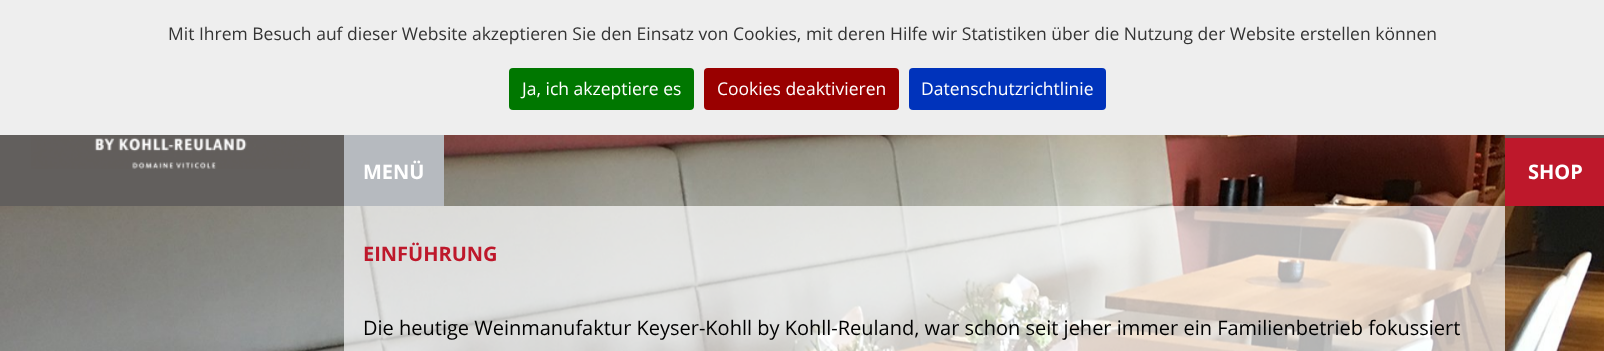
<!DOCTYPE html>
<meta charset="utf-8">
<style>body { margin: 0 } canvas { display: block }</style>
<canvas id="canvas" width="1604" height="351"></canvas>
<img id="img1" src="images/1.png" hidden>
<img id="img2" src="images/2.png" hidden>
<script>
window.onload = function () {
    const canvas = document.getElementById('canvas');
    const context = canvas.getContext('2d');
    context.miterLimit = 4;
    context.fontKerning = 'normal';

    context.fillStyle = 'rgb(255, 255, 255)';
    context.fillRect(0, 0, 1604, 351);
    context.fillStyle = 'rgb(238, 238, 238)';
    context.fillRect(0, 0, 1604, 135);
    context.fillStyle = 'rgb(0, 119, 0)';
    context.beginPath();
    context.roundRect(509, 68, 185, 42, 4);
    context.fill();
    context.fillStyle = 'rgb(153, 0, 0)';
    context.beginPath();
    context.roundRect(704, 68, 195, 42, 4);
    context.fill();
    context.fillStyle = 'rgb(0, 51, 187)';
    context.beginPath();
    context.roundRect(909, 68, 197, 42, 4);
    context.fill();
    context.drawImage(document.getElementById('img1'), 0, 135, 1604, 216);
    context.fillStyle = 'rgb(98, 95, 93)';
    context.fillRect(0, 135, 344, 71);
    context.drawImage(document.getElementById('img2'), 31, 135, 279, 34);
    context.fillStyle = 'rgb(182, 186, 191)';
    context.fillRect(344, 135, 100, 71);
    context.fillStyle = 'rgb(98, 95, 93)';
    context.fillRect(1505, 135, 99, 3);
    context.fillStyle = 'rgb(190, 24, 43)';
    context.fillRect(1505, 138, 99, 68);
    context.fillStyle = 'rgba(255, 255, 255, 0.7)';
    context.fillRect(344, 206, 1161, 145);
    context.font = '17.5px Open Sans';
    context.fillStyle = 'rgb(51, 51, 51)';
    context.fillText('Mit Ihrem Besuch auf dieser Website akzeptieren Sie den Einsatz von Cookies, mit deren Hilfe wir Statistiken über die Nutzung der Website erstellen können', 168, 40);
    context.fillStyle = 'rgb(255, 255, 255)';
    context.fillText('Ja, ich akzeptiere es', 522, 95);
    context.fillText('Cookies deaktivieren', 717, 95);
    context.fillText('Datenschutzrichtlinie', 921, 95);
    context.font = 'bold 20px Open Sans';
    context.fillText('MENÜ', 363, 179);
    context.fillText('SHOP', 1528, 179);
    context.fillStyle = 'rgb(190, 24, 43)';
    context.fillText('EINFÜHRUNG', 363, 261);
    context.font = '20px Open Sans';
    context.fillStyle = 'rgb(0, 0, 0)';
    context.fillText('Die heutige Weinmanufaktur Keyser-Kohll by Kohll-Reuland, war schon seit jeher immer ein Familienbetrieb fokussiert', 363, 335);
};
</script>
